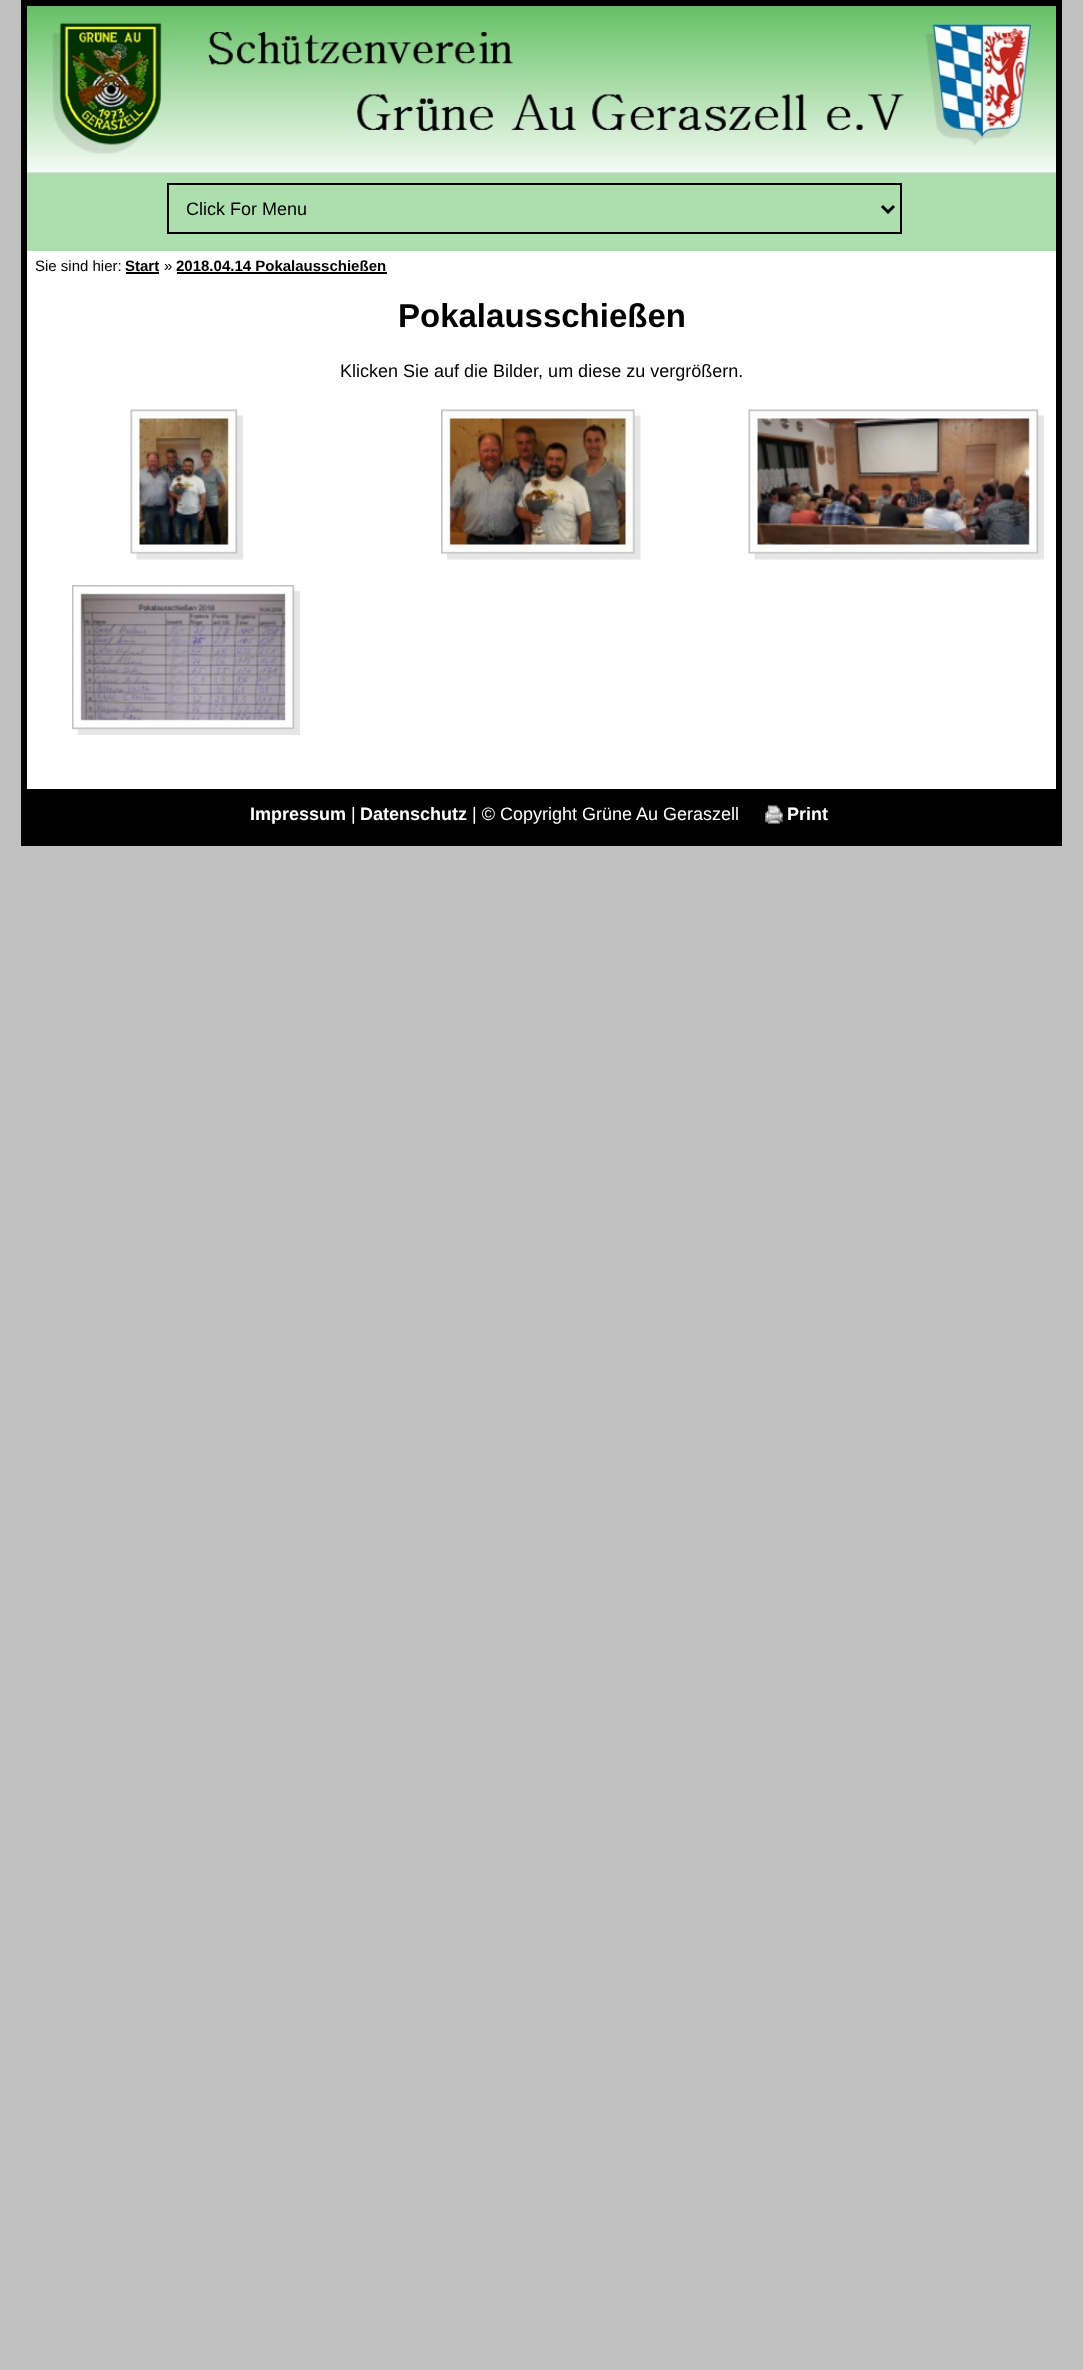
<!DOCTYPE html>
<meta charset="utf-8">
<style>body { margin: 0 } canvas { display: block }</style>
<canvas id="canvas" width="1083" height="2370"></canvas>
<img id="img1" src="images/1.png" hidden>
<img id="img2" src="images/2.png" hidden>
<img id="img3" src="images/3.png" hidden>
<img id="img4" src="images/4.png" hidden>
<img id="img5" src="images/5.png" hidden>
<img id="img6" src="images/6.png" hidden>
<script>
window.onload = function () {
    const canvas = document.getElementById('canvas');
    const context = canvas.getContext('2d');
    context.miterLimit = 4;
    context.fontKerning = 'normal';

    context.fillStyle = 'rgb(192, 192, 192)';
    context.fillRect(0, 0, 1083, 2370);
    context.strokeStyle = 'rgb(0, 0, 0)';
    context.lineWidth = 6;
    context.strokeRect(24, 3, 1035, 840);
    context.drawImage(document.getElementById('img1'), 27, 6, 1029, 167);
    context.fillStyle = 'rgb(173, 223, 174)';
    context.fillRect(27, 173, 1029, 78);
    context.lineWidth = 2;
    context.strokeRect(168, 184, 733, 49);
    context.beginPath();
    context.moveTo(882, 206);
    context.lineTo(888, 212);
    context.lineTo(894, 206);
    context.lineWidth = 3;
    context.stroke();
    context.fillStyle = 'rgb(255, 255, 255)';
    context.fillRect(27, 251, 1029, 538);
    context.fillStyle = 'rgb(0, 0, 0)';
    context.fillRect(126, 272, 33, 2);
    context.fillRect(177, 272, 210, 2);
    context.drawImage(document.getElementById('img2'), 130, 409, 113, 151);
    context.drawImage(document.getElementById('img3'), 441, 409, 200, 151);
    context.drawImage(document.getElementById('img4'), 748, 409, 296, 151);
    context.drawImage(document.getElementById('img5'), 72, 585, 228, 150);
    context.fillRect(27, 789, 1029, 51);
    context.drawImage(document.getElementById('img6'), 765, 805, 18, 19);
    context.font = '18px Liberation Sans';
    context.fillText('Click For Menu', 186, 215);
    context.font = '15px Liberation Sans';
    context.fillText('Sie sind hier:', 35, 271);
    context.font = 'bold 15px Liberation Sans';
    context.fillText('Start', 125, 271);
    context.font = '15px Liberation Sans';
    context.fillText('»', 164, 271);
    context.font = 'bold 15px Liberation Sans';
    context.fillText('2018.04.14 Pokalausschießen', 176, 271);
    context.font = 'bold 33px Liberation Sans';
    context.fillText('Pokalausschießen', 398, 327);
    context.font = '18px Liberation Sans';
    context.fillText('Klicken Sie auf die Bilder, um diese zu vergrößern.', 340, 377);
    context.font = 'bold 18px Liberation Sans';
    context.fillStyle = 'rgb(255, 255, 255)';
    context.fillText('Impressum', 250, 820);
    context.font = '18px Liberation Sans';
    context.fillText('|', 351, 820);
    context.font = 'bold 18px Liberation Sans';
    context.fillText('Datenschutz', 360, 820);
    context.font = '18px Liberation Sans';
    context.fillText('| © Copyright Grüne Au Geraszell', 472, 820);
    context.font = 'bold 18px Liberation Sans';
    context.fillText('Print', 787, 820);
};
</script>
